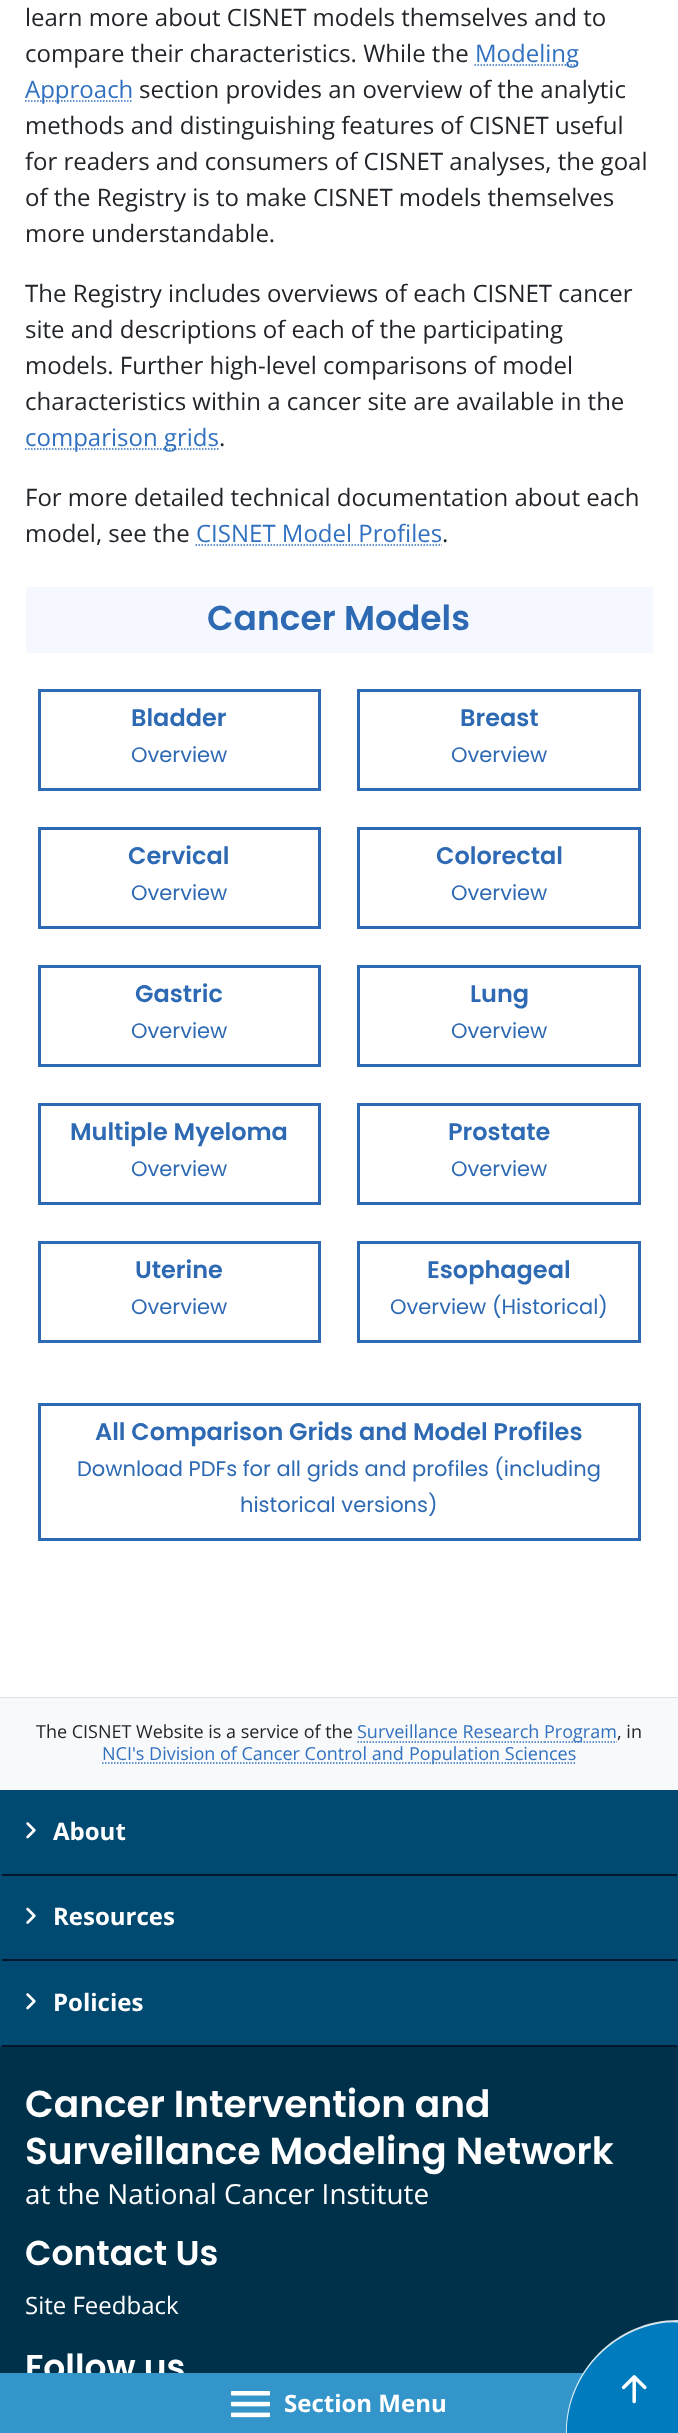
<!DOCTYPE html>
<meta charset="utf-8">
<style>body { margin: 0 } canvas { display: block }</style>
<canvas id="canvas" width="678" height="2433"></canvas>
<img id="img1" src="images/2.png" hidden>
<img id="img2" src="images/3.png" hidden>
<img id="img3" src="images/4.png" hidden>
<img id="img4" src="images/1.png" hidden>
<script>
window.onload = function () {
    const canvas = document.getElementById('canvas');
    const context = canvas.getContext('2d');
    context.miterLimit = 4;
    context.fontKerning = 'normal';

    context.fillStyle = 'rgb(255, 255, 255)';
    context.fillRect(0, 0, 678, 2433);
    context.beginPath();
    context.moveTo(474.5, 65);
    context.lineTo(578.5, 65);
    context.strokeStyle = 'rgb(49, 113, 191)';
    context.lineWidth = 1.5;
    context.setLineDash([1.5, 1.5]);
    context.stroke();
    context.beginPath();
    context.moveTo(25, 101);
    context.lineTo(133, 101);
    context.stroke();
    context.beginPath();
    context.moveTo(25, 449);
    context.lineTo(218.5, 449);
    context.stroke();
    context.beginPath();
    context.moveTo(195.5, 545);
    context.lineTo(442, 545);
    context.stroke();
    context.fillStyle = 'rgb(245, 249, 255)';
    context.fillRect(26, 587, 627, 66);
    context.strokeStyle = 'rgb(46, 106, 179)';
    context.lineWidth = 3;
    context.setLineDash([]);
    context.strokeRect(39.5, 690.5, 280, 99);
    context.strokeRect(358.5, 690.5, 281, 99);
    context.strokeRect(39.5, 828.5, 280, 99);
    context.strokeRect(358.5, 828.5, 281, 99);
    context.strokeRect(39.5, 966.5, 280, 99);
    context.strokeRect(358.5, 966.5, 281, 99);
    context.strokeRect(39.5, 1104.5, 280, 99);
    context.strokeRect(358.5, 1104.5, 281, 99);
    context.strokeRect(39.5, 1242.5, 280, 99);
    context.strokeRect(358.5, 1242.5, 281, 99);
    context.strokeRect(39.5, 1404.5, 600, 135);
    context.fillStyle = 'rgb(222, 226, 230)';
    context.fillRect(0, 1697, 678, 1);
    context.fillStyle = 'rgb(248, 249, 250)';
    context.fillRect(0, 1698, 678, 92);
    context.beginPath();
    context.moveTo(357.5, 1742);
    context.lineTo(544.5, 1742);
    context.strokeStyle = 'rgb(49, 113, 191)';
    context.lineWidth = 1.5;
    context.setLineDash([1.5, 1.5]);
    context.stroke();
    context.beginPath();
    context.moveTo(544.5, 1742);
    context.lineTo(617, 1742);
    context.stroke();
    context.beginPath();
    context.moveTo(102, 1763);
    context.lineTo(408.5, 1763);
    context.stroke();
    context.beginPath();
    context.moveTo(408.5, 1763);
    context.lineTo(576, 1763);
    context.stroke();
    context.fillStyle = 'rgb(0, 73, 113)';
    context.fillRect(0, 1790, 678, 256);
    context.fillStyle = 'rgb(6, 22, 45)';
    context.fillRect(2, 1874, 675, 2);
    context.drawImage(document.getElementById('img1'), 26, 1822, 10, 17);
    context.fillRect(2, 1959, 675, 2);
    context.drawImage(document.getElementById('img2'), 26, 1907, 10, 17);
    context.fillStyle = 'rgb(0, 49, 75)';
    context.fillRect(0, 2046, 678, 327);
    context.fillStyle = 'rgb(6, 22, 45)';
    context.fillRect(2, 2045, 675, 2);
    context.drawImage(document.getElementById('img1'), 26, 1993, 10, 17);
    context.font = '24px Open Sans';
    context.fillStyle = 'rgb(33, 37, 41)';
    context.fillText('learn more about CISNET models themselves and to', 25, 26);
    context.fillText('compare their characteristics. While the', 25, 62);
    context.fillStyle = 'rgb(49, 113, 191)';
    context.fillText('Modeling', 475, 62);
    context.fillText('Approach', 25, 98);
    context.fillStyle = 'rgb(33, 37, 41)';
    context.fillText('section provides an overview of the analytic', 139, 98);
    context.fillText('methods and distinguishing features of CISNET useful', 25, 134);
    context.fillText('for readers and consumers of CISNET analyses, the goal', 25, 170);
    context.fillText('of the Registry is to make CISNET models themselves', 25, 206);
    context.fillText('more understandable.', 25, 242);
    context.fillText('The Registry includes overviews of each CISNET cancer', 25, 302);
    context.fillText('site and descriptions of each of the participating', 25, 338);
    context.fillText('models. Further high-level comparisons of model', 25, 374);
    context.fillText('characteristics within a cancer site are available in the', 25, 410);
    context.fillStyle = 'rgb(49, 113, 191)';
    context.fillText('comparison grids', 25, 446);
    context.fillStyle = 'rgb(33, 37, 41)';
    context.fillText('.', 219, 446);
    context.fillText('For more detailed technical documentation about each', 25, 506);
    context.fillText('model, see the', 25, 542);
    context.fillStyle = 'rgb(49, 113, 191)';
    context.fillText('CISNET Model Profiles', 196, 542);
    context.fillStyle = 'rgb(33, 37, 41)';
    context.fillText('.', 442, 542);
    context.font = '600 34.5px Poppins';
    context.fillStyle = 'rgb(46, 106, 179)';
    context.fillText('Cancer Models', 207, 630);
    context.font = '600 24px Poppins';
    context.fillText('Bladder', 131, 726);
    context.font = '21px Poppins';
    context.fillText('Overview', 131, 762);
    context.font = '600 24px Poppins';
    context.fillText('Breast', 460, 726);
    context.font = '21px Poppins';
    context.fillText('Overview', 451, 762);
    context.font = '600 24px Poppins';
    context.fillText('Cervical', 128, 864);
    context.font = '21px Poppins';
    context.fillText('Overview', 131, 900);
    context.font = '600 24px Poppins';
    context.fillText('Colorectal', 436, 864);
    context.font = '21px Poppins';
    context.fillText('Overview', 451, 900);
    context.font = '600 24px Poppins';
    context.fillText('Gastric', 135, 1002);
    context.font = '21px Poppins';
    context.fillText('Overview', 131, 1038);
    context.font = '600 24px Poppins';
    context.fillText('Lung', 470, 1002);
    context.font = '21px Poppins';
    context.fillText('Overview', 451, 1038);
    context.font = '600 24px Poppins';
    context.fillText('Multiple Myeloma', 70, 1140);
    context.font = '21px Poppins';
    context.fillText('Overview', 131, 1176);
    context.font = '600 24px Poppins';
    context.fillText('Prostate', 448, 1140);
    context.font = '21px Poppins';
    context.fillText('Overview', 451, 1176);
    context.font = '600 24px Poppins';
    context.fillText('Uterine', 135, 1278);
    context.font = '21px Poppins';
    context.fillText('Overview', 131, 1314);
    context.font = '600 24px Poppins';
    context.fillText('Esophageal', 427, 1278);
    context.font = '21px Poppins';
    context.fillText('Overview (Historical)', 390, 1314);
    context.font = '600 24px Poppins';
    context.fillText('All Comparison Grids and Model Profiles', 95, 1440);
    context.font = '21px Poppins';
    context.fillText('Download PDFs for all grids and profiles (including', 77, 1476);
    context.fillText('historical versions)', 240, 1512);
    context.font = '18px Open Sans';
    context.fillStyle = 'rgb(33, 37, 41)';
    context.fillText('The CISNET Website is a service of the', 36, 1738);
    context.fillStyle = 'rgb(49, 113, 191)';
    context.fillText('Surveillance Research', 357, 1738);
    context.fillText('Program', 544, 1738);
    context.fillStyle = 'rgb(33, 37, 41)';
    context.fillText(', in', 617, 1738);
    context.fillStyle = 'rgb(49, 113, 191)';
    context.fillText('NCI\'s Division of Cancer Control and', 102, 1760);
    context.fillText('Population Sciences', 409, 1760);
    context.font = 'bold 24px Open Sans';
    context.fillStyle = 'rgb(255, 255, 255)';
    context.fillText('About', 53, 1840);
    context.fillText('Resources', 53, 1925);
    context.fillText('Policies', 53, 2011);
    context.font = '600 37.5px Poppins';
    context.fillText('Cancer Intervention and', 25, 2117);
    context.fillText('Surveillance Modeling Network', 25, 2164);
    context.font = '27.8px Open Sans';
    context.fillText('at the National Cancer Institute', 25, 2204);
    context.font = '600 34.5px Poppins';
    context.fillText('Contact Us', 25, 2265);
    context.font = '24px Open Sans';
    context.fillText('Site Feedback', 25, 2314);
    context.font = '600 34.5px Poppins';
    context.fillText('Follow us', 25, 2379);
    context.fillStyle = 'rgb(51, 149, 202)';
    context.fillRect(0, 2373, 584, 60);
    context.fillStyle = 'rgb(0, 123, 189)';
    context.beginPath();
    context.roundRect(566, 2321, 112, 112, [112, 0, 0, 0]);
    context.fill();
    context.fillStyle = 'rgba(255, 255, 255, 0.85)';
    context.beginPath();
    context.moveTo(678, 2320);
    context.lineTo(678, 2433);
    context.lineTo(566, 2433);
    context.bezierCurveTo(566, 2371, 616, 2320, 678, 2320);
    context.closePath();
    context.moveTo(678, 2322);
    context.lineTo(678, 2433);
    context.lineTo(567, 2433);
    context.bezierCurveTo(567, 2372, 617, 2322, 678, 2322);
    context.closePath();
    context.fill('evenodd');
    context.drawImage(document.getElementById('img3'), 621, 2375, 26, 29);
    context.drawImage(document.getElementById('img4'), 231, 2391, 39, 27);
    context.font = 'bold 24px Open Sans';
    context.fillStyle = 'rgb(255, 255, 255)';
    context.fillText('Section Menu', 284, 2412);
};
</script>
